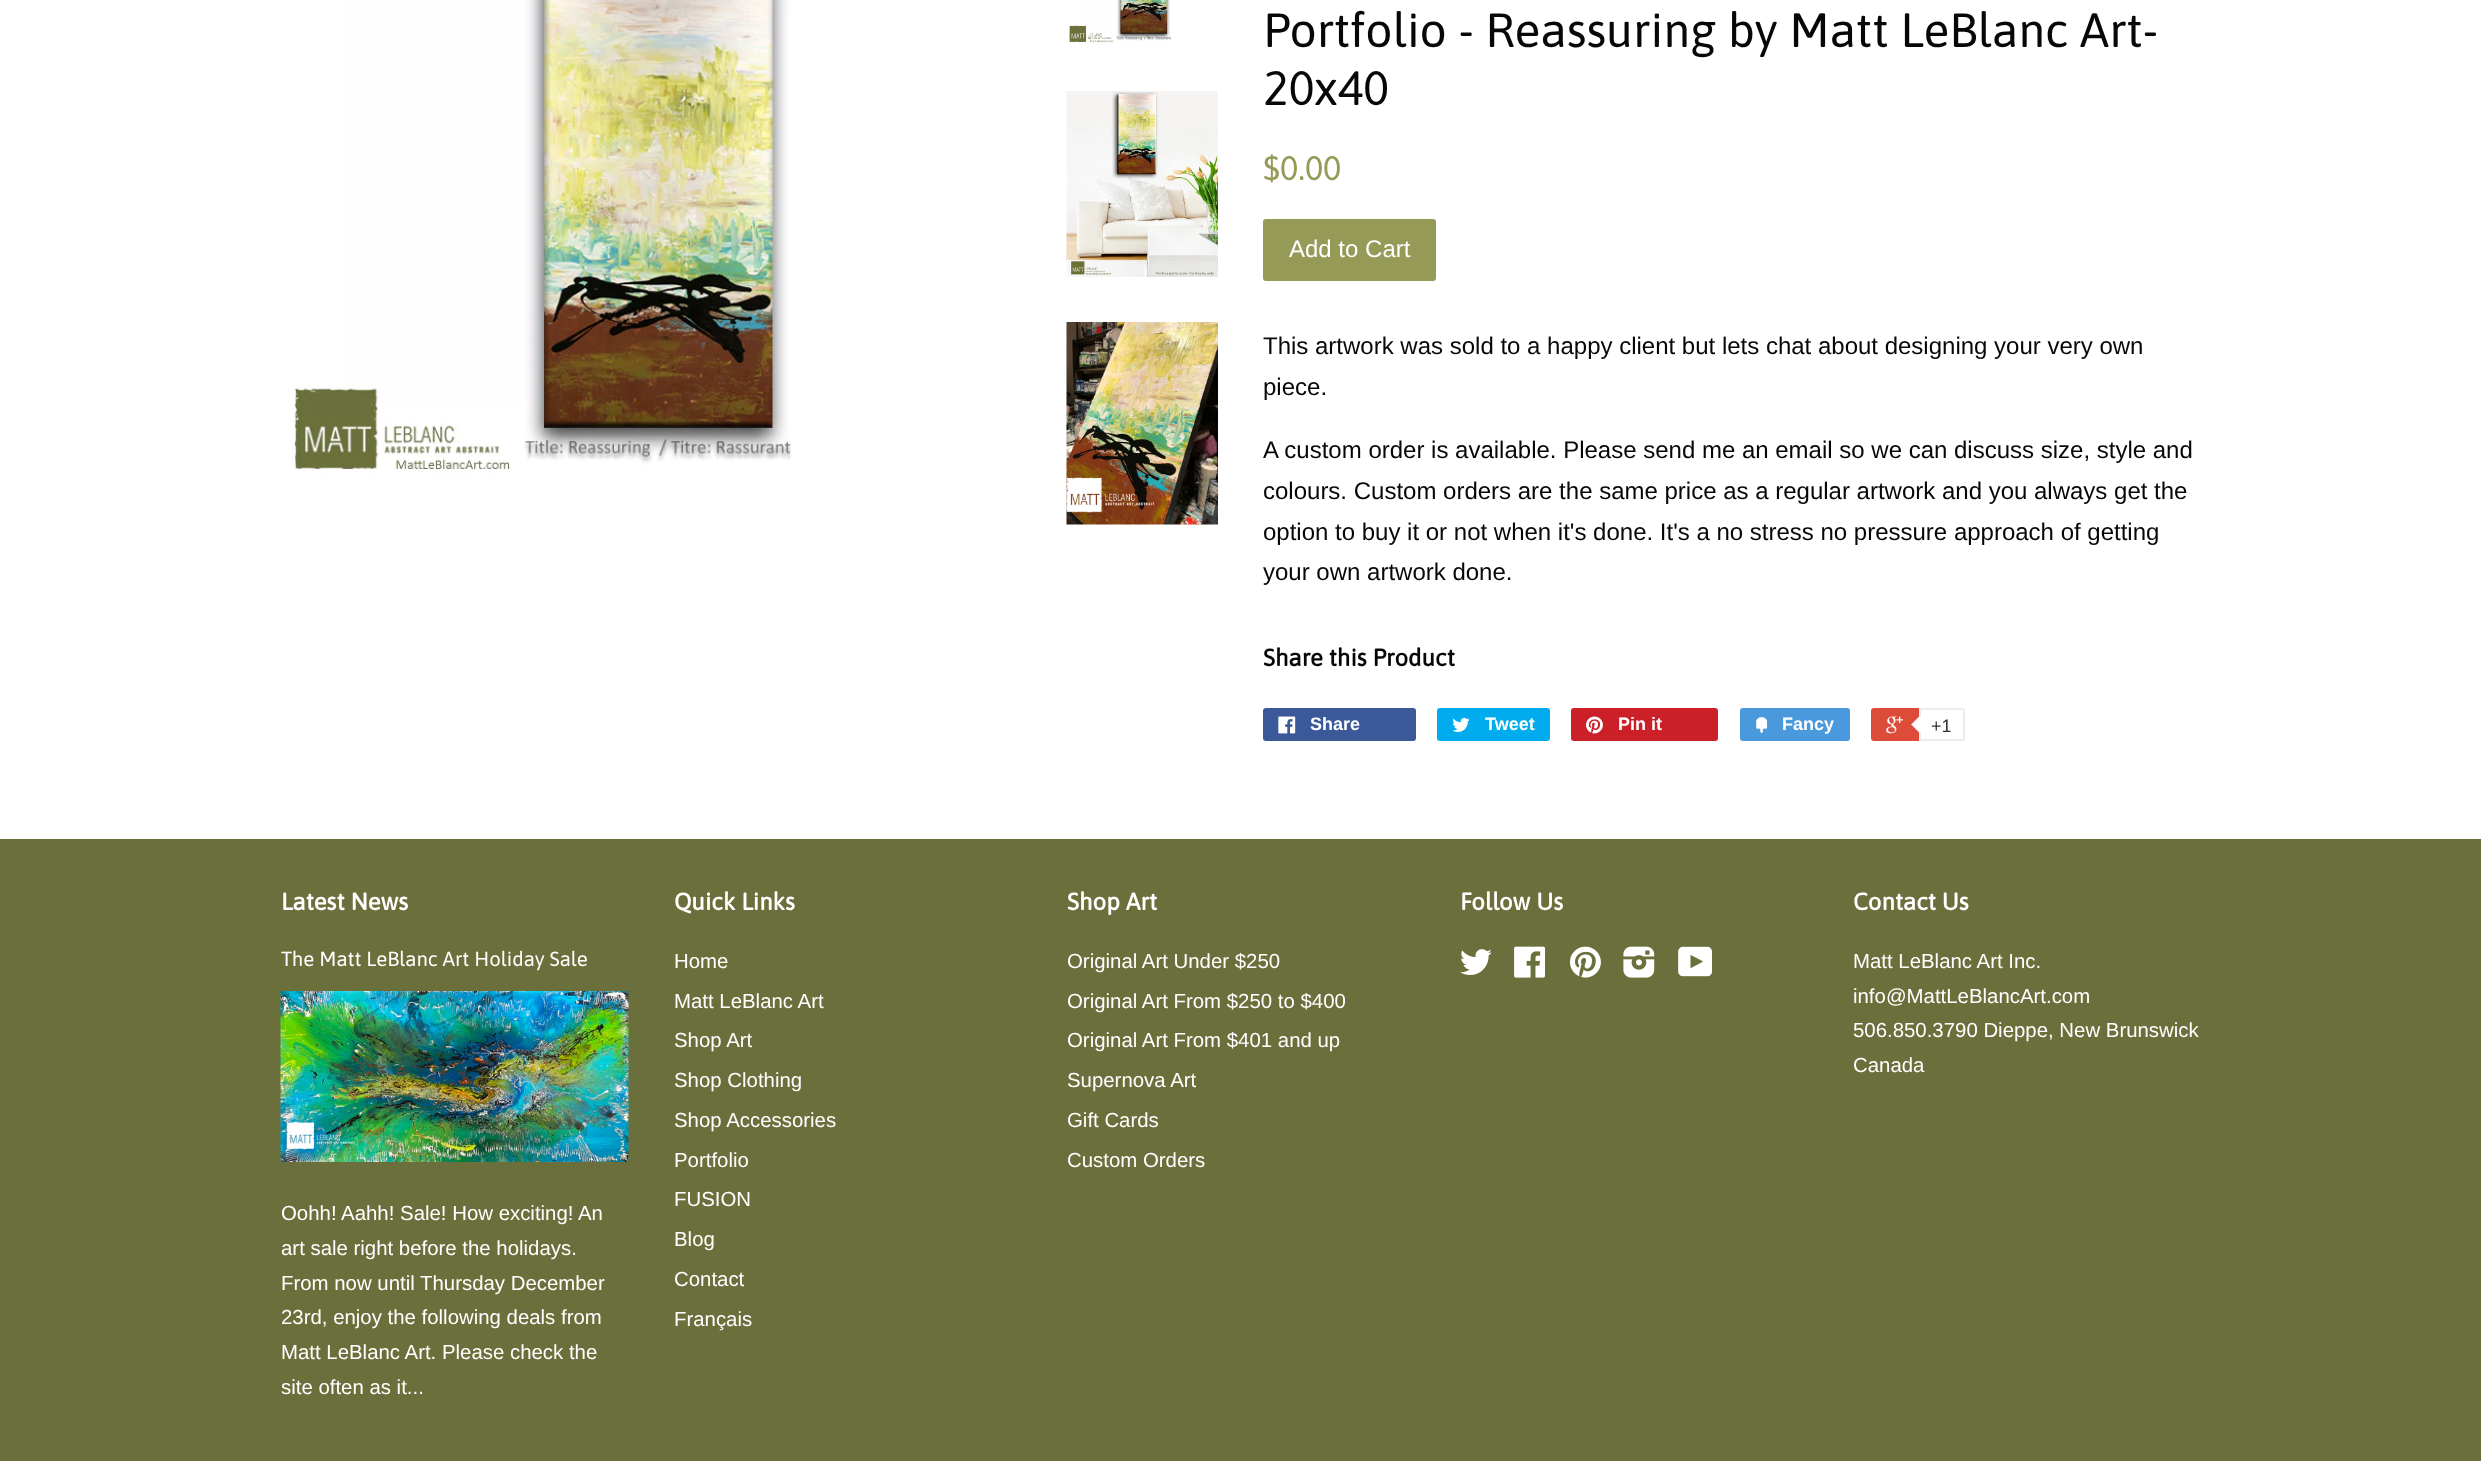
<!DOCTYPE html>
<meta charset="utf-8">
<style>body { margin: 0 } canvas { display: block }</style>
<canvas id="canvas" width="2481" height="1461"></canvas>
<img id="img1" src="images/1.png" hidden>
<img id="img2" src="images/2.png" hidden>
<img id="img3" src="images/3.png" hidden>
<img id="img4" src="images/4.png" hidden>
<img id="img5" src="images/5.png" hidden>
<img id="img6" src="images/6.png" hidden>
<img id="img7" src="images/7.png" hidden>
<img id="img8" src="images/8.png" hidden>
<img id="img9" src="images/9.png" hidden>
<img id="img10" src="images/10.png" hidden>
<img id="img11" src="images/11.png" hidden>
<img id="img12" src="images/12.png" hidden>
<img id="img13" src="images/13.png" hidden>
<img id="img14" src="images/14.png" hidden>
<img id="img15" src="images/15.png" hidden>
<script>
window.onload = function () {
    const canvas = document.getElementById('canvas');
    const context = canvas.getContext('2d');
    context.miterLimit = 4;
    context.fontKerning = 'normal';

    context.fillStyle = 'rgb(255, 255, 255)';
    context.fillRect(0, 0, 2481, 1461);
    context.drawImage(document.getElementById('img1'), 291, 0, 500, 476);
    context.drawImage(document.getElementById('img2'), 1069, 0, 102, 43);
    context.drawImage(document.getElementById('img3'), 1066, 91, 152, 186);
    context.drawImage(document.getElementById('img4'), 1066, 322, 152, 203);
    context.fillStyle = 'rgb(149, 154, 87)';
    context.beginPath();
    context.roundRect(1263, 219, 173, 62, 3);
    context.fill();
    context.fillStyle = 'rgb(59, 89, 152)';
    context.beginPath();
    context.roundRect(1263, 708, 153, 33, 3);
    context.fill();
    context.drawImage(document.getElementById('img5'), 1278, 716, 18, 18);
    context.fillStyle = 'rgb(0, 172, 237)';
    context.beginPath();
    context.roundRect(1437, 708, 113, 33, 3);
    context.fill();
    context.drawImage(document.getElementById('img6'), 1452, 717, 18, 15);
    context.fillStyle = 'rgb(203, 32, 39)';
    context.beginPath();
    context.roundRect(1571, 708, 147, 33, 3);
    context.fill();
    context.drawImage(document.getElementById('img7'), 1586, 716, 17, 18);
    context.fillStyle = 'rgb(73, 153, 220)';
    context.beginPath();
    context.roundRect(1740, 708, 110, 33, 3);
    context.fill();
    context.drawImage(document.getElementById('img8'), 1756, 717, 12, 16);
    context.fillStyle = 'rgb(221, 75, 57)';
    context.beginPath();
    context.roundRect(1871, 708, 91, 33, 3);
    context.fill();
    context.drawImage(document.getElementById('img9'), 1886, 716, 17, 18);
    context.fillStyle = 'rgb(255, 255, 255)';
    context.beginPath();
    context.roundRect(1920, 709, 44, 31, [0, 2, 2, 0]);
    context.fill();
    context.strokeStyle = 'rgb(236, 236, 236)';
    context.lineWidth = 2;
    context.stroke();
    context.fillStyle = 'rgb(236, 236, 236)';
    context.beginPath();
    context.moveTo(1920, 715.5);
    context.lineTo(1920, 733.5);
    context.lineTo(1911, 724.5);
    context.closePath();
    context.fill();
    context.fillStyle = 'rgb(255, 255, 255)';
    context.beginPath();
    context.moveTo(1921.5, 715.5);
    context.lineTo(1921.5, 733.5);
    context.lineTo(1912.5, 724.5);
    context.closePath();
    context.fill();
    context.fillStyle = 'rgb(107, 111, 59)';
    context.fillRect(0, 839, 2481, 622);
    context.drawImage(document.getElementById('img10'), 280, 991, 349, 171);
    context.drawImage(document.getElementById('img11'), 1460, 949, 32, 26);
    context.drawImage(document.getElementById('img12'), 1514, 946, 31, 32);
    context.drawImage(document.getElementById('img13'), 1570, 946, 31, 32);
    context.drawImage(document.getElementById('img14'), 1623, 946, 32, 32);
    context.drawImage(document.getElementById('img15'), 1678, 946, 34, 31);
    context.font = '48px Asap';
    context.fillStyle = 'rgb(7, 7, 7)';
    context.fillText('Portfolio - Reassuring by Matt LeBlanc Art-', 1263, 47);
    context.fillText('20x40', 1263, 105);
    context.font = '34px Asap';
    context.fillStyle = 'rgb(149, 154, 87)';
    context.fillText('$0.00', 1263, 180);
    context.font = '24px Liberation Sans';
    context.fillStyle = 'rgb(255, 255, 255)';
    context.fillText('Add to Cart', 1289, 257);
    context.fillStyle = 'rgb(7, 7, 7)';
    context.fillText('This artwork was sold to a happy client but lets chat about designing your very own', 1263, 354);
    context.fillText('piece.', 1263, 395);
    context.fillText('A custom order is available. Please send me an email so we can discuss size, style and', 1263, 458);
    context.fillText('colours. Custom orders are the same price as a regular artwork and you always get the', 1263, 499);
    context.fillText('option to buy it or not when it\'s done. It\'s a no stress no pressure approach of getting', 1263, 540);
    context.fillText('your own artwork done.', 1263, 580);
    context.font = 'bold 24px Asap';
    context.fillText('Share this Product', 1263, 666);
    context.font = 'bold 18px Liberation Sans';
    context.fillStyle = 'rgb(255, 255, 255)';
    context.fillText('Share', 1310, 730);
    context.fillText('Tweet', 1485, 730);
    context.fillText('Pin it', 1618, 730);
    context.fillText('Fancy', 1782, 730);
    context.font = '18px Liberation Sans';
    context.fillStyle = 'rgb(51, 51, 51)';
    context.fillText('+1', 1931, 732);
    context.font = 'bold 24px Asap';
    context.fillStyle = 'rgb(255, 255, 255)';
    context.fillText('Latest News', 281, 910);
    context.font = '20.4px Asap';
    context.fillText('The Matt LeBlanc Art Holiday Sale', 281, 966);
    context.font = '20.4px Liberation Sans';
    context.fillText('Oohh! Aahh! Sale! How exciting! An', 281, 1220);
    context.fillText('art sale right before the holidays.', 281, 1255);
    context.fillText('From now until Thursday December', 281, 1290);
    context.fillText('23rd, enjoy the following deals from', 281, 1324);
    context.fillText('Matt LeBlanc Art. Please check the', 281, 1359);
    context.fillText('site often as it...', 281, 1394);
    context.font = 'bold 24px Asap';
    context.fillText('Quick Links', 674, 910);
    context.font = '20.4px Liberation Sans';
    context.fillText('Home', 674, 968);
    context.fillText('Matt LeBlanc Art', 674, 1008);
    context.fillText('Shop Art', 674, 1047);
    context.fillText('Shop Clothing', 674, 1087);
    context.fillText('Shop Accessories', 674, 1127);
    context.fillText('Portfolio', 674, 1167);
    context.fillText('FUSION', 674, 1206);
    context.fillText('Blog', 674, 1246);
    context.fillText('Contact', 674, 1286);
    context.fillText('Français', 674, 1326);
    context.font = 'bold 24px Asap';
    context.fillText('Shop Art', 1067, 910);
    context.font = '20.4px Liberation Sans';
    context.fillText('Original Art Under $250', 1067, 968);
    context.fillText('Original Art From $250 to $400', 1067, 1008);
    context.fillText('Original Art From $401 and up', 1067, 1047);
    context.fillText('Supernova Art', 1067, 1087);
    context.fillText('Gift Cards', 1067, 1127);
    context.fillText('Custom Orders', 1067, 1167);
    context.font = 'bold 24px Asap';
    context.fillText('Follow Us', 1460, 910);
    context.fillText('Contact Us', 1853, 910);
    context.font = '20.4px Liberation Sans';
    context.fillText('Matt LeBlanc Art Inc.', 1853, 968);
    context.fillText('info@MattLeBlancArt.com', 1853, 1003);
    context.fillText('506.850.3790 Dieppe, New Brunswick', 1853, 1037);
    context.fillText('Canada', 1853, 1072);
};
</script>
